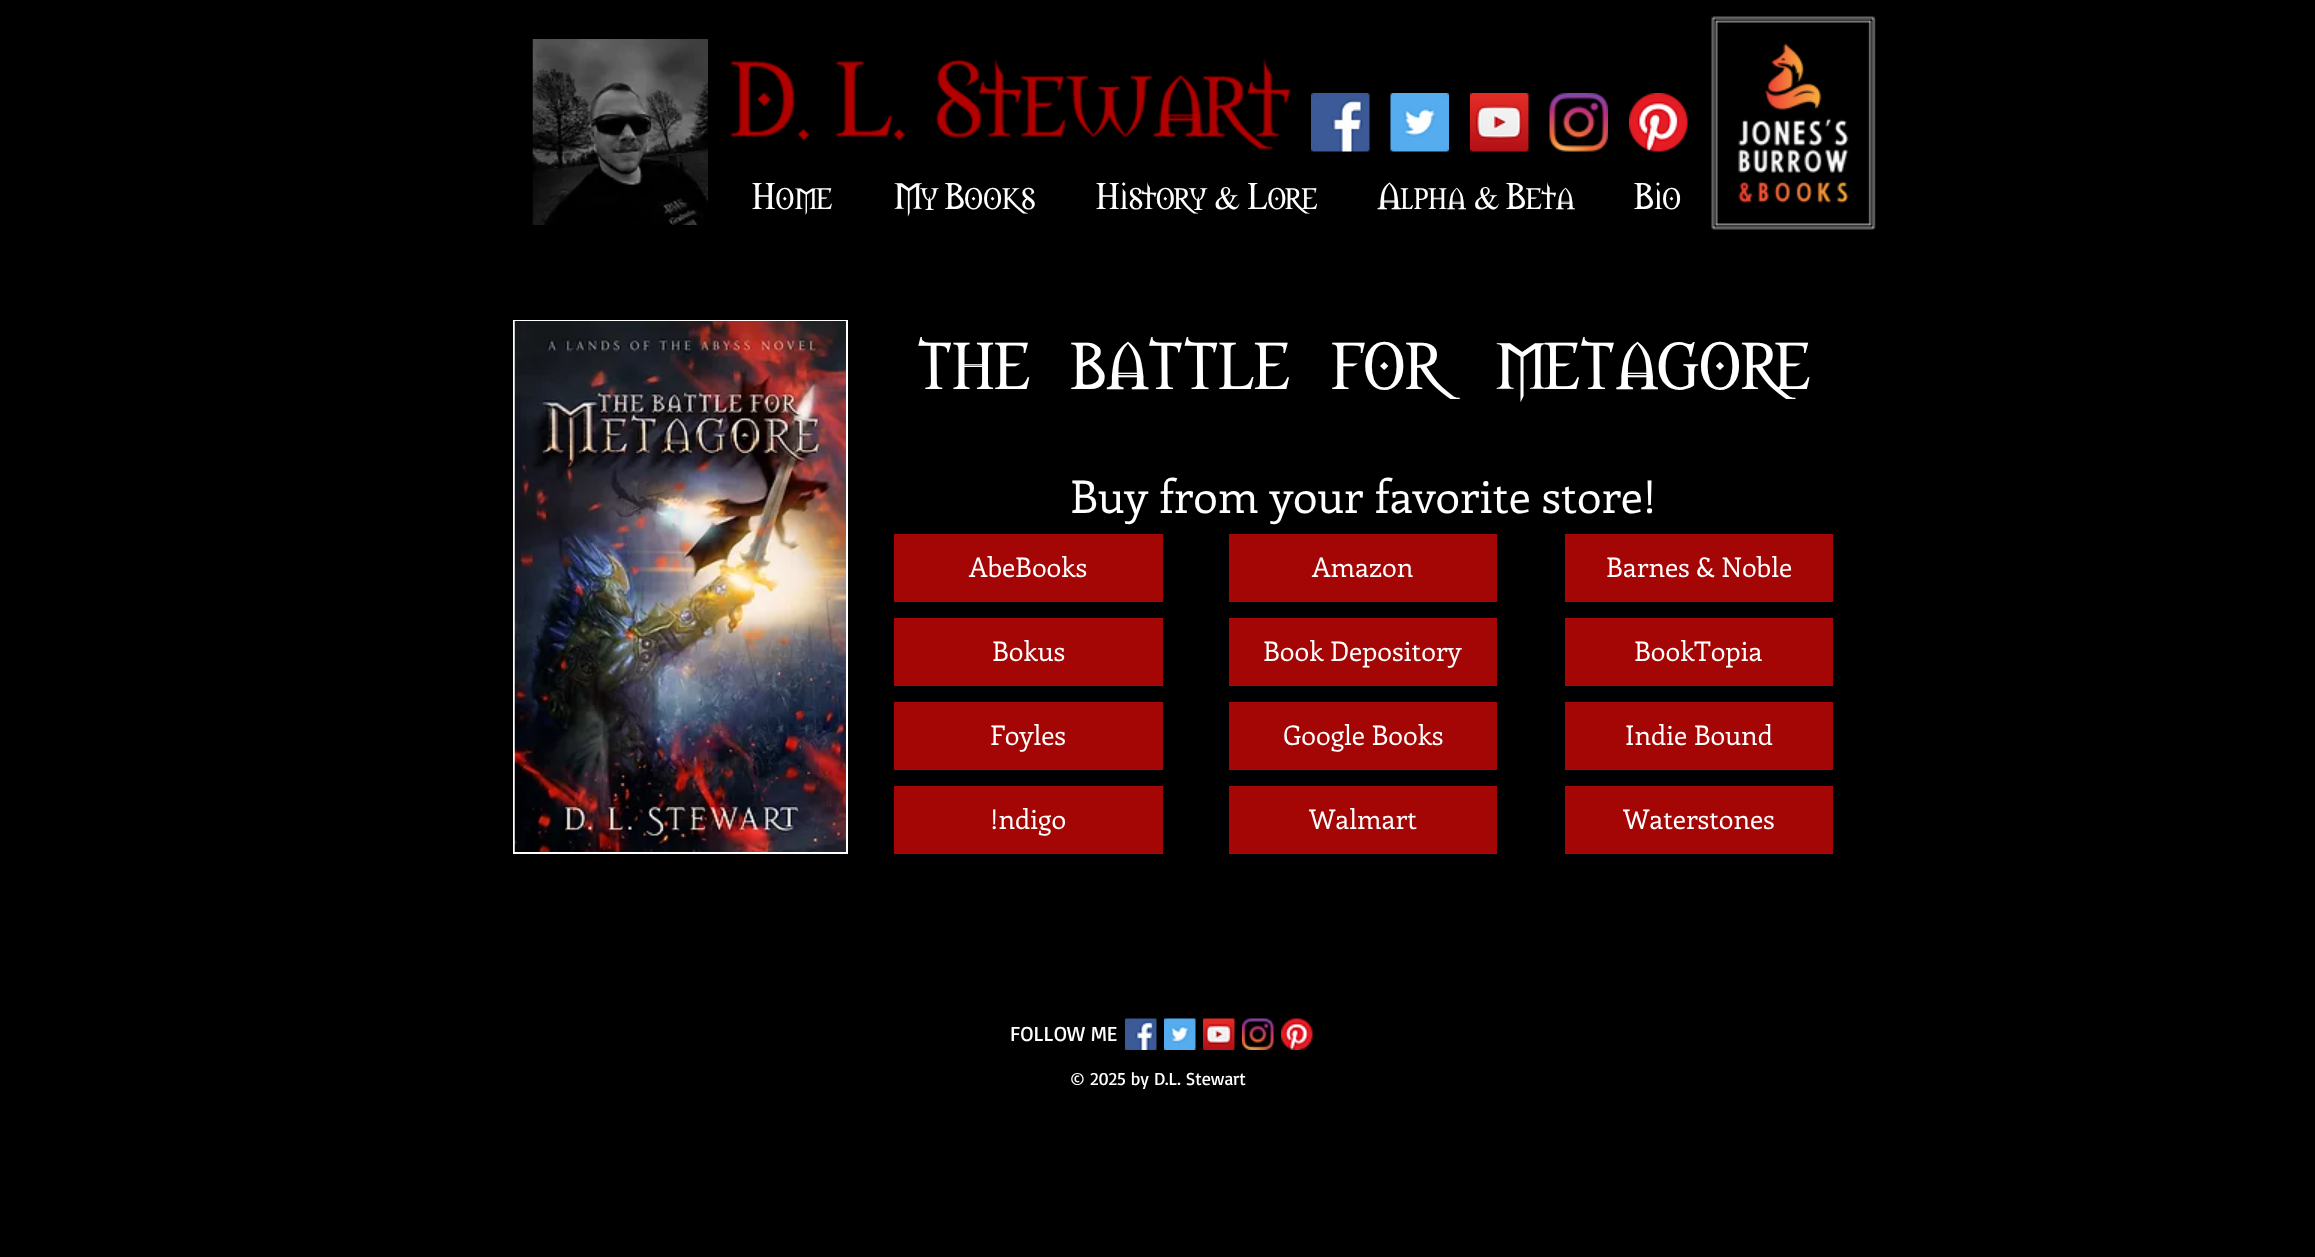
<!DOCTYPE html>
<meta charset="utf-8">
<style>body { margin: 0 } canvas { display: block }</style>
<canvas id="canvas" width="2315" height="1257"></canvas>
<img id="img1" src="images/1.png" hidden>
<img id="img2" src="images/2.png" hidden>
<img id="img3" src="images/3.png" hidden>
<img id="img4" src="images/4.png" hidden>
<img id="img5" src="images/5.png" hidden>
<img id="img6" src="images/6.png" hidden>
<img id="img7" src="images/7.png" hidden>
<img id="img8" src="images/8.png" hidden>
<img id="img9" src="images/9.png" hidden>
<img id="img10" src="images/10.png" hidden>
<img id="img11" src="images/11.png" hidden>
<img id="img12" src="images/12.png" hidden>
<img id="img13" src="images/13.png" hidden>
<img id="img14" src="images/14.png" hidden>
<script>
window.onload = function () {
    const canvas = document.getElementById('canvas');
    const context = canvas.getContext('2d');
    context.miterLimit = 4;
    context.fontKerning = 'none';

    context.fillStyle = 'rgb(0, 0, 0)';
    context.fillRect(0, 0, 2315, 1257);
    context.drawImage(document.getElementById('img1'), 532, 39, 176, 186);
    context.drawImage(document.getElementById('img2'), 730, 58, 561, 93);
    context.drawImage(document.getElementById('img3'), 1311, 93, 59, 59);
    context.drawImage(document.getElementById('img4'), 1390, 93, 59, 59);
    context.drawImage(document.getElementById('img5'), 1470, 93, 59, 59);
    context.drawImage(document.getElementById('img6'), 1549, 93, 59, 59);
    context.drawImage(document.getElementById('img7'), 1629, 93, 59, 59);
    context.drawImage(document.getElementById('img8'), 1711, 16, 165, 214);
    context.fillStyle = 'rgb(255, 255, 255)';
    context.fillRect(513, 320, 335, 534);
    context.drawImage(document.getElementById('img9'), 514, 321, 332, 531);
    context.fillStyle = 'rgb(164, 6, 6)';
    context.fillRect(894, 534, 269, 68);
    context.fillRect(1229, 534, 268, 68);
    context.fillRect(1565, 534, 268, 68);
    context.fillRect(894, 618, 269, 68);
    context.fillRect(1229, 618, 268, 68);
    context.fillRect(1565, 618, 268, 68);
    context.fillRect(894, 702, 269, 68);
    context.fillRect(1229, 702, 268, 68);
    context.fillRect(1565, 702, 268, 68);
    context.fillRect(894, 786, 269, 68);
    context.fillRect(1229, 786, 268, 68);
    context.fillRect(1565, 786, 268, 68);
    context.drawImage(document.getElementById('img10'), 1125, 1018, 32, 32);
    context.drawImage(document.getElementById('img11'), 1164, 1018, 32, 32);
    context.drawImage(document.getElementById('img12'), 1203, 1018, 32, 32);
    context.drawImage(document.getElementById('img13'), 1242, 1018, 32, 32);
    context.drawImage(document.getElementById('img14'), 1281, 1018, 32, 32);
    context.font = '34.5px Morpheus';
    context.fillStyle = 'rgb(255, 255, 255)';
    context.fillText('Home', 752, 209);
    context.fillText('My Books', 894, 209);
    context.fillText('History & Lore', 1096, 209);
    context.fillText('Alpha & Beta', 1377, 209);
    context.fillText('Bio', 1635, 209);
    context.font = '61.5px Morpheus';
    context.fillText('THE   BATTLE   FOR    METAGORE', 917, 389);
    context.font = '45px Enriqueta';
    context.fillText('Buy from your favorite store!', 1070, 513);
    context.font = '27px Enriqueta';
    context.fillText('AbeBooks', 969, 577);
    context.fillText('Amazon', 1312, 577);
    context.fillText('Barnes & Noble', 1606, 577);
    context.fillText('Bokus', 992, 661);
    context.fillText('Book Depository', 1263, 661);
    context.fillText('BookTopia', 1634, 661);
    context.fillText('Foyles', 990, 745);
    context.fillText('Google Books', 1283, 745);
    context.fillText('Indie Bound', 1625, 745);
    context.fillText('!ndigo', 990, 829);
    context.fillText('Walmart', 1309, 829);
    context.fillText('Waterstones', 1623, 829);
    context.font = '21px Basic';
    context.fillText('FOLLOW ME', 1010, 1041);
    context.font = '18px Basic';
    context.fillText('© 2025 by D.L. Stewart', 1070, 1085);
};
</script>
